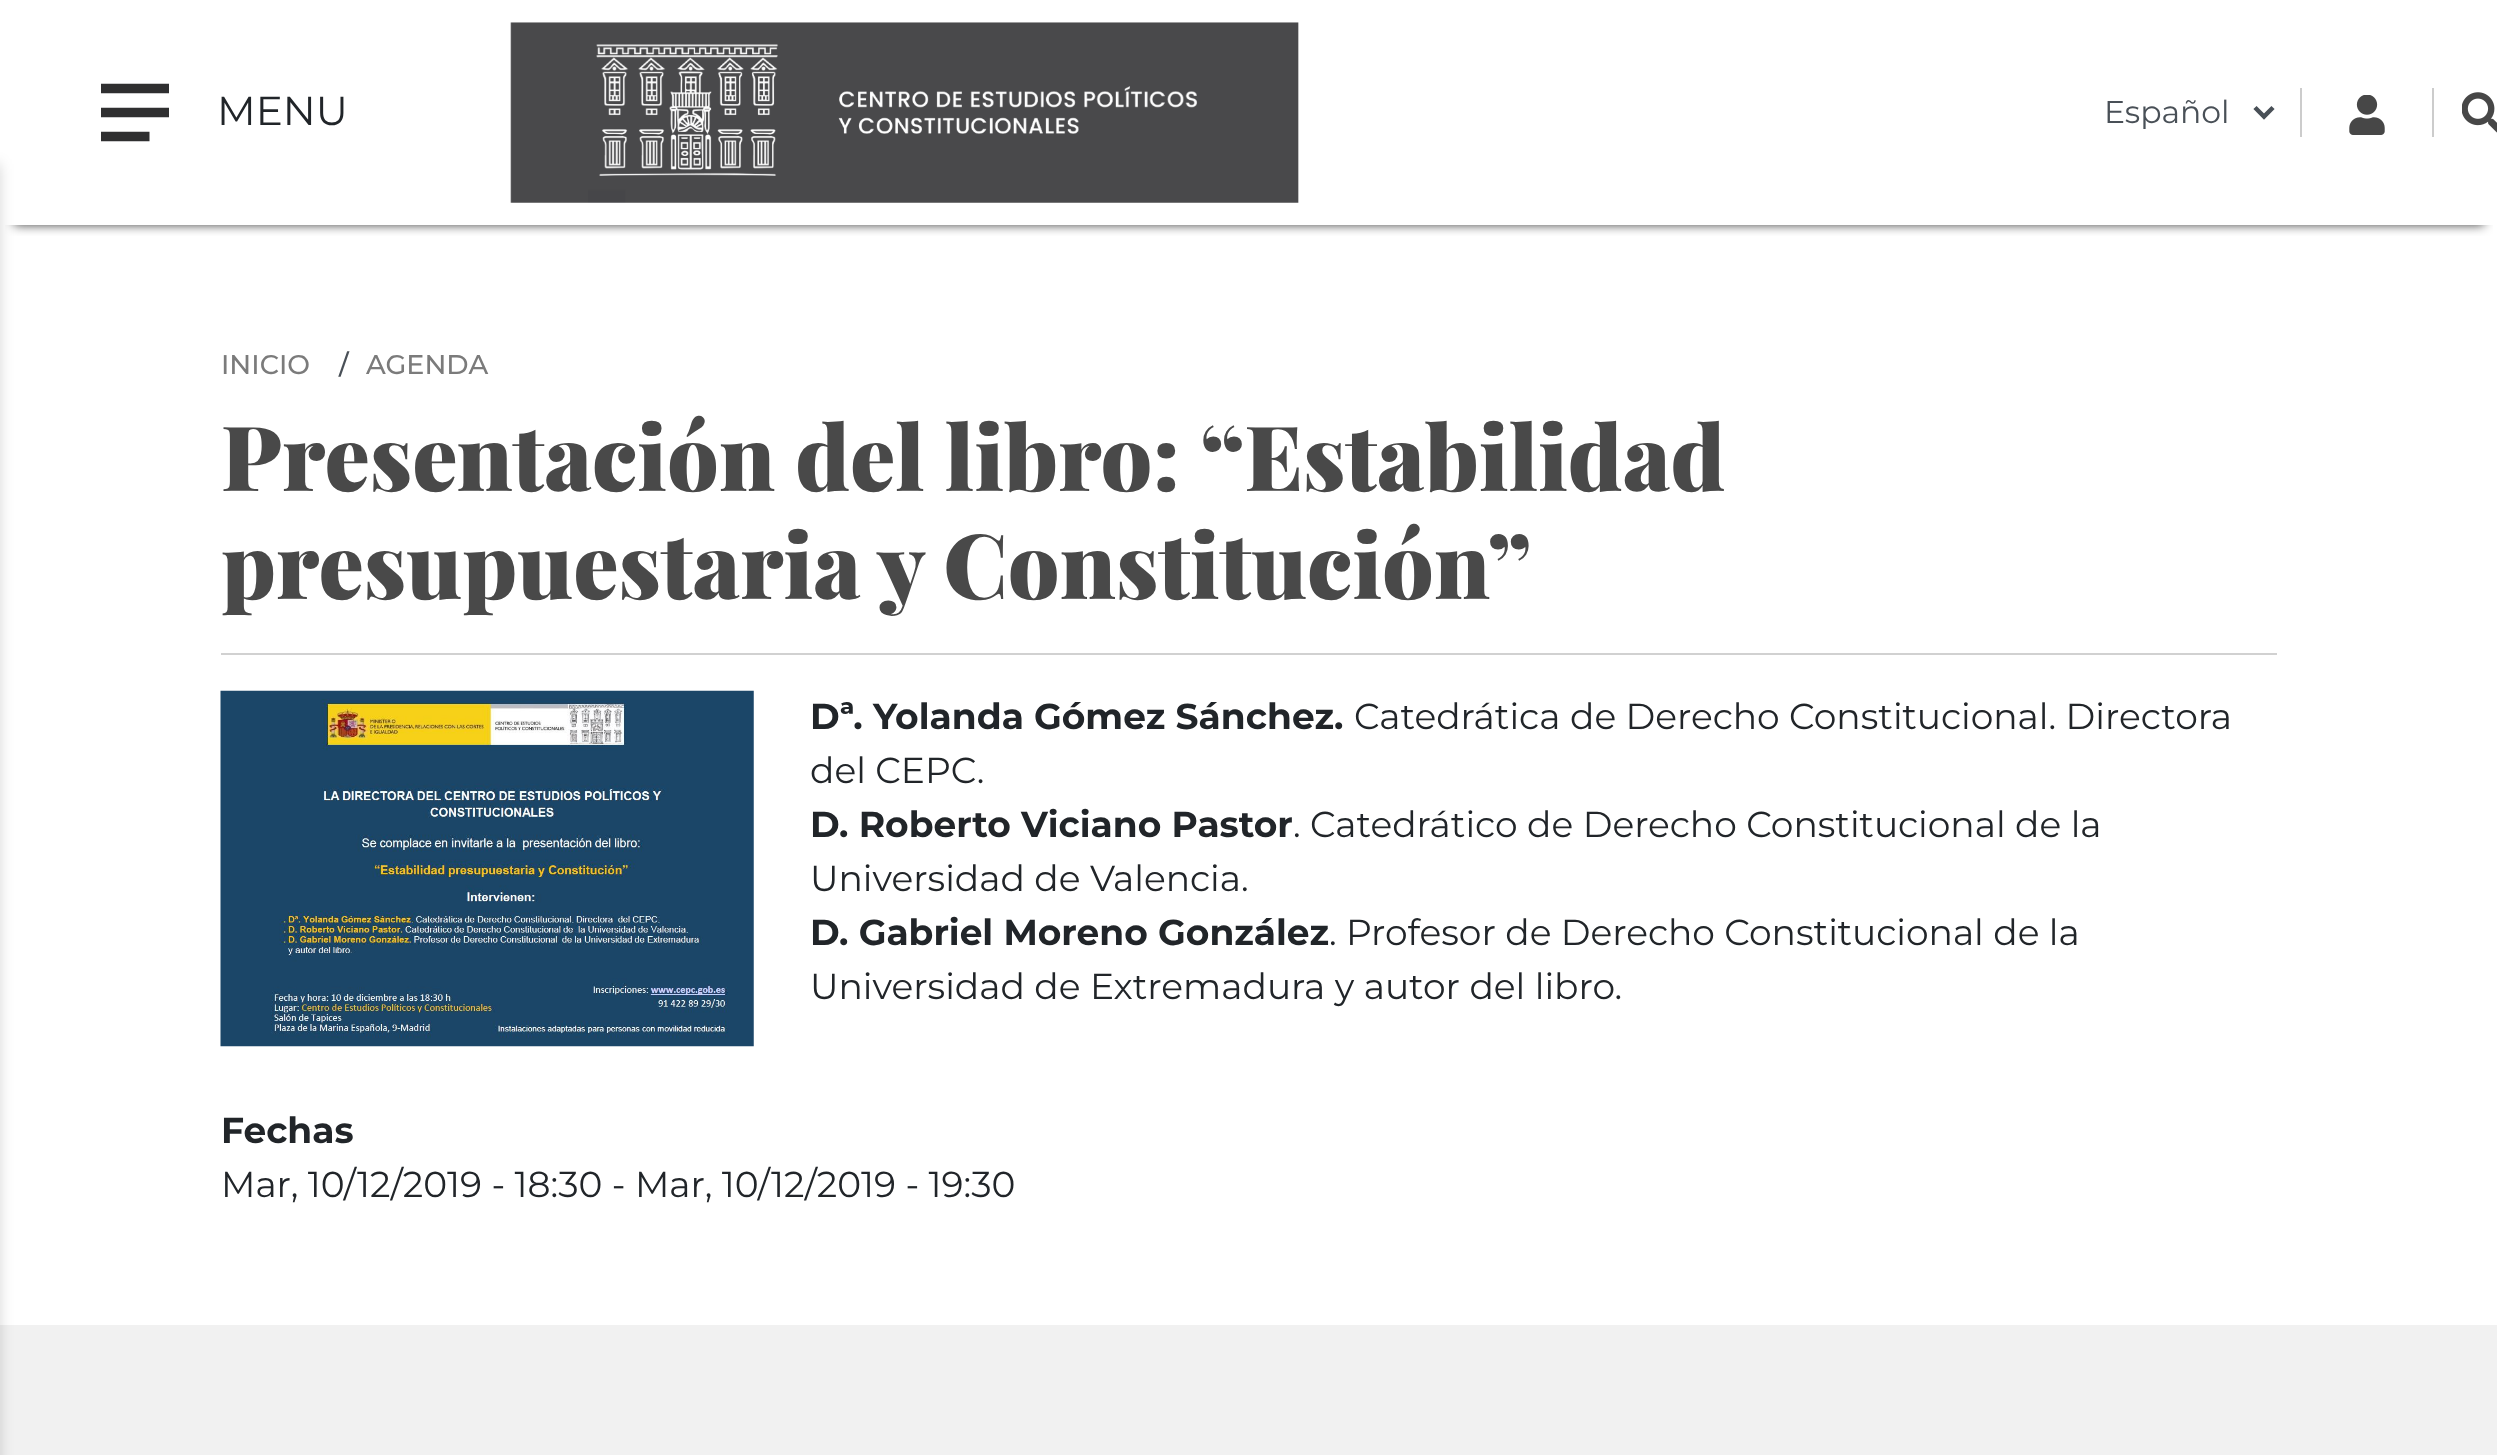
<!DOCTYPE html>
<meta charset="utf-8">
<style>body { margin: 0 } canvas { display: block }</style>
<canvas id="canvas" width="2497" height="1455"></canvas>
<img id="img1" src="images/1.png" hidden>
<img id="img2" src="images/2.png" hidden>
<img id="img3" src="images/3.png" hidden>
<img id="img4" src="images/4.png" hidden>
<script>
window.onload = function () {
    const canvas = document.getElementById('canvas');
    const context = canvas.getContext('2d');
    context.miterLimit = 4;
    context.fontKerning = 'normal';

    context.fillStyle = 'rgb(255, 255, 255)';
    context.fillRect(0, 0, 2497, 1455);
    context.save();
    context.beginPath();
    context.rect(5, 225, 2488, 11);
    context.clip();
    context.fillStyle = 'rgba(0, 0, 0, 0.75)';
    context.filter = 'blur(5.5px)';
    context.beginPath();
    context.rect(14, 27, 2470, 198);
    context.fill();
    context.filter = 'none';
    context.restore();
    context.beginPath();
    context.moveTo(101, 88.5);
    context.lineTo(169, 88.5);
    context.strokeStyle = 'rgb(47, 47, 48)';
    context.lineWidth = 9.6;
    context.stroke();
    context.beginPath();
    context.moveTo(101, 112.5);
    context.lineTo(169, 112.5);
    context.stroke();
    context.beginPath();
    context.moveTo(101, 136.5);
    context.lineTo(149.5, 136.5);
    context.stroke();
    context.fillStyle = 'rgb(241, 241, 241)';
    context.fillRect(0, 1325, 2497, 130);
    context.fillStyle = 'rgba(0, 0, 0, 0.16)';
    context.filter = 'blur(7px)';
    context.beginPath();
    context.rect(-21, 164, 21, 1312);
    context.fill();
    context.filter = 'none';
    context.drawImage(document.getElementById('img1'), 510, 22, 789, 181);
    context.beginPath();
    context.moveTo(2255, 107.5);
    context.lineTo(2264, 116.5);
    context.lineTo(2273, 107.5);
    context.strokeStyle = 'rgb(73, 80, 87)';
    context.lineWidth = 4.5;
    context.stroke();
    context.fillStyle = 'rgb(204, 204, 204)';
    context.fillRect(2300, 88, 2, 49);
    context.drawImage(document.getElementById('img2'), 2349, 95, 36, 40);
    context.fillRect(2432, 88, 2, 49);
    context.drawImage(document.getElementById('img3'), 2462, 92, 35, 41);
    context.fillStyle = 'rgb(209, 209, 209)';
    context.fillRect(221, 653, 2056, 2);
    context.drawImage(document.getElementById('img4'), 220, 690, 534, 357);
    context.font = '40.5px Montserrat';
    context.fillStyle = 'rgb(33, 37, 41)';
    context.fillText('MENU', 217, 125);
    context.font = '31.5px Montserrat';
    context.fillStyle = 'rgb(73, 80, 87)';
    context.fillText('Español', 2104, 123);
    context.font = '500 27px Montserrat';
    context.fillStyle = 'rgb(123, 123, 123)';
    context.fillText('INICIO', 221, 374);
    context.fillStyle = 'rgb(73, 80, 87)';
    context.fillText('/', 339, 374);
    context.fillStyle = 'rgb(123, 123, 123)';
    context.fillText('AGENDA', 366, 374);
    context.font = '900 90px Playfair Display';
    context.fillStyle = 'rgb(73, 73, 73)';
    context.fillText('Presentación del libro: “Estabilidad', 221, 491);
    context.fillText('presupuestaria y Constitución”', 221, 599);
    context.font = 'bold 36px Montserrat';
    context.fillStyle = 'rgb(33, 37, 41)';
    context.fillText('Dª. Yolanda Gómez Sánchez.', 810, 729);
    context.font = '36px Montserrat';
    context.fillText('Catedrática de Derecho Constitucional. Directora', 1354, 729);
    context.fillText('del CEPC.', 810, 783);
    context.font = 'bold 36px Montserrat';
    context.fillText('D. Roberto Viciano Pastor', 810, 837);
    context.font = '36px Montserrat';
    context.fillText('. Catedrático de Derecho Constitucional de la', 1293, 837);
    context.fillText('Universidad de Valencia.', 810, 891);
    context.font = 'bold 36px Montserrat';
    context.fillText('D. Gabriel Moreno González', 810, 945);
    context.font = '36px Montserrat';
    context.fillText('. Profesor de Derecho Constitucional de la', 1329, 945);
    context.fillText('Universidad de Extremadura y autor del libro.', 810, 999);
    context.font = 'bold 36px Montserrat';
    context.fillText('Fechas', 221, 1143);
    context.font = '36px Montserrat';
    context.fillText('Mar, 10/12/2019 - 18:30 - Mar, 10/12/2019 - 19:30', 221, 1197);
};
</script>
